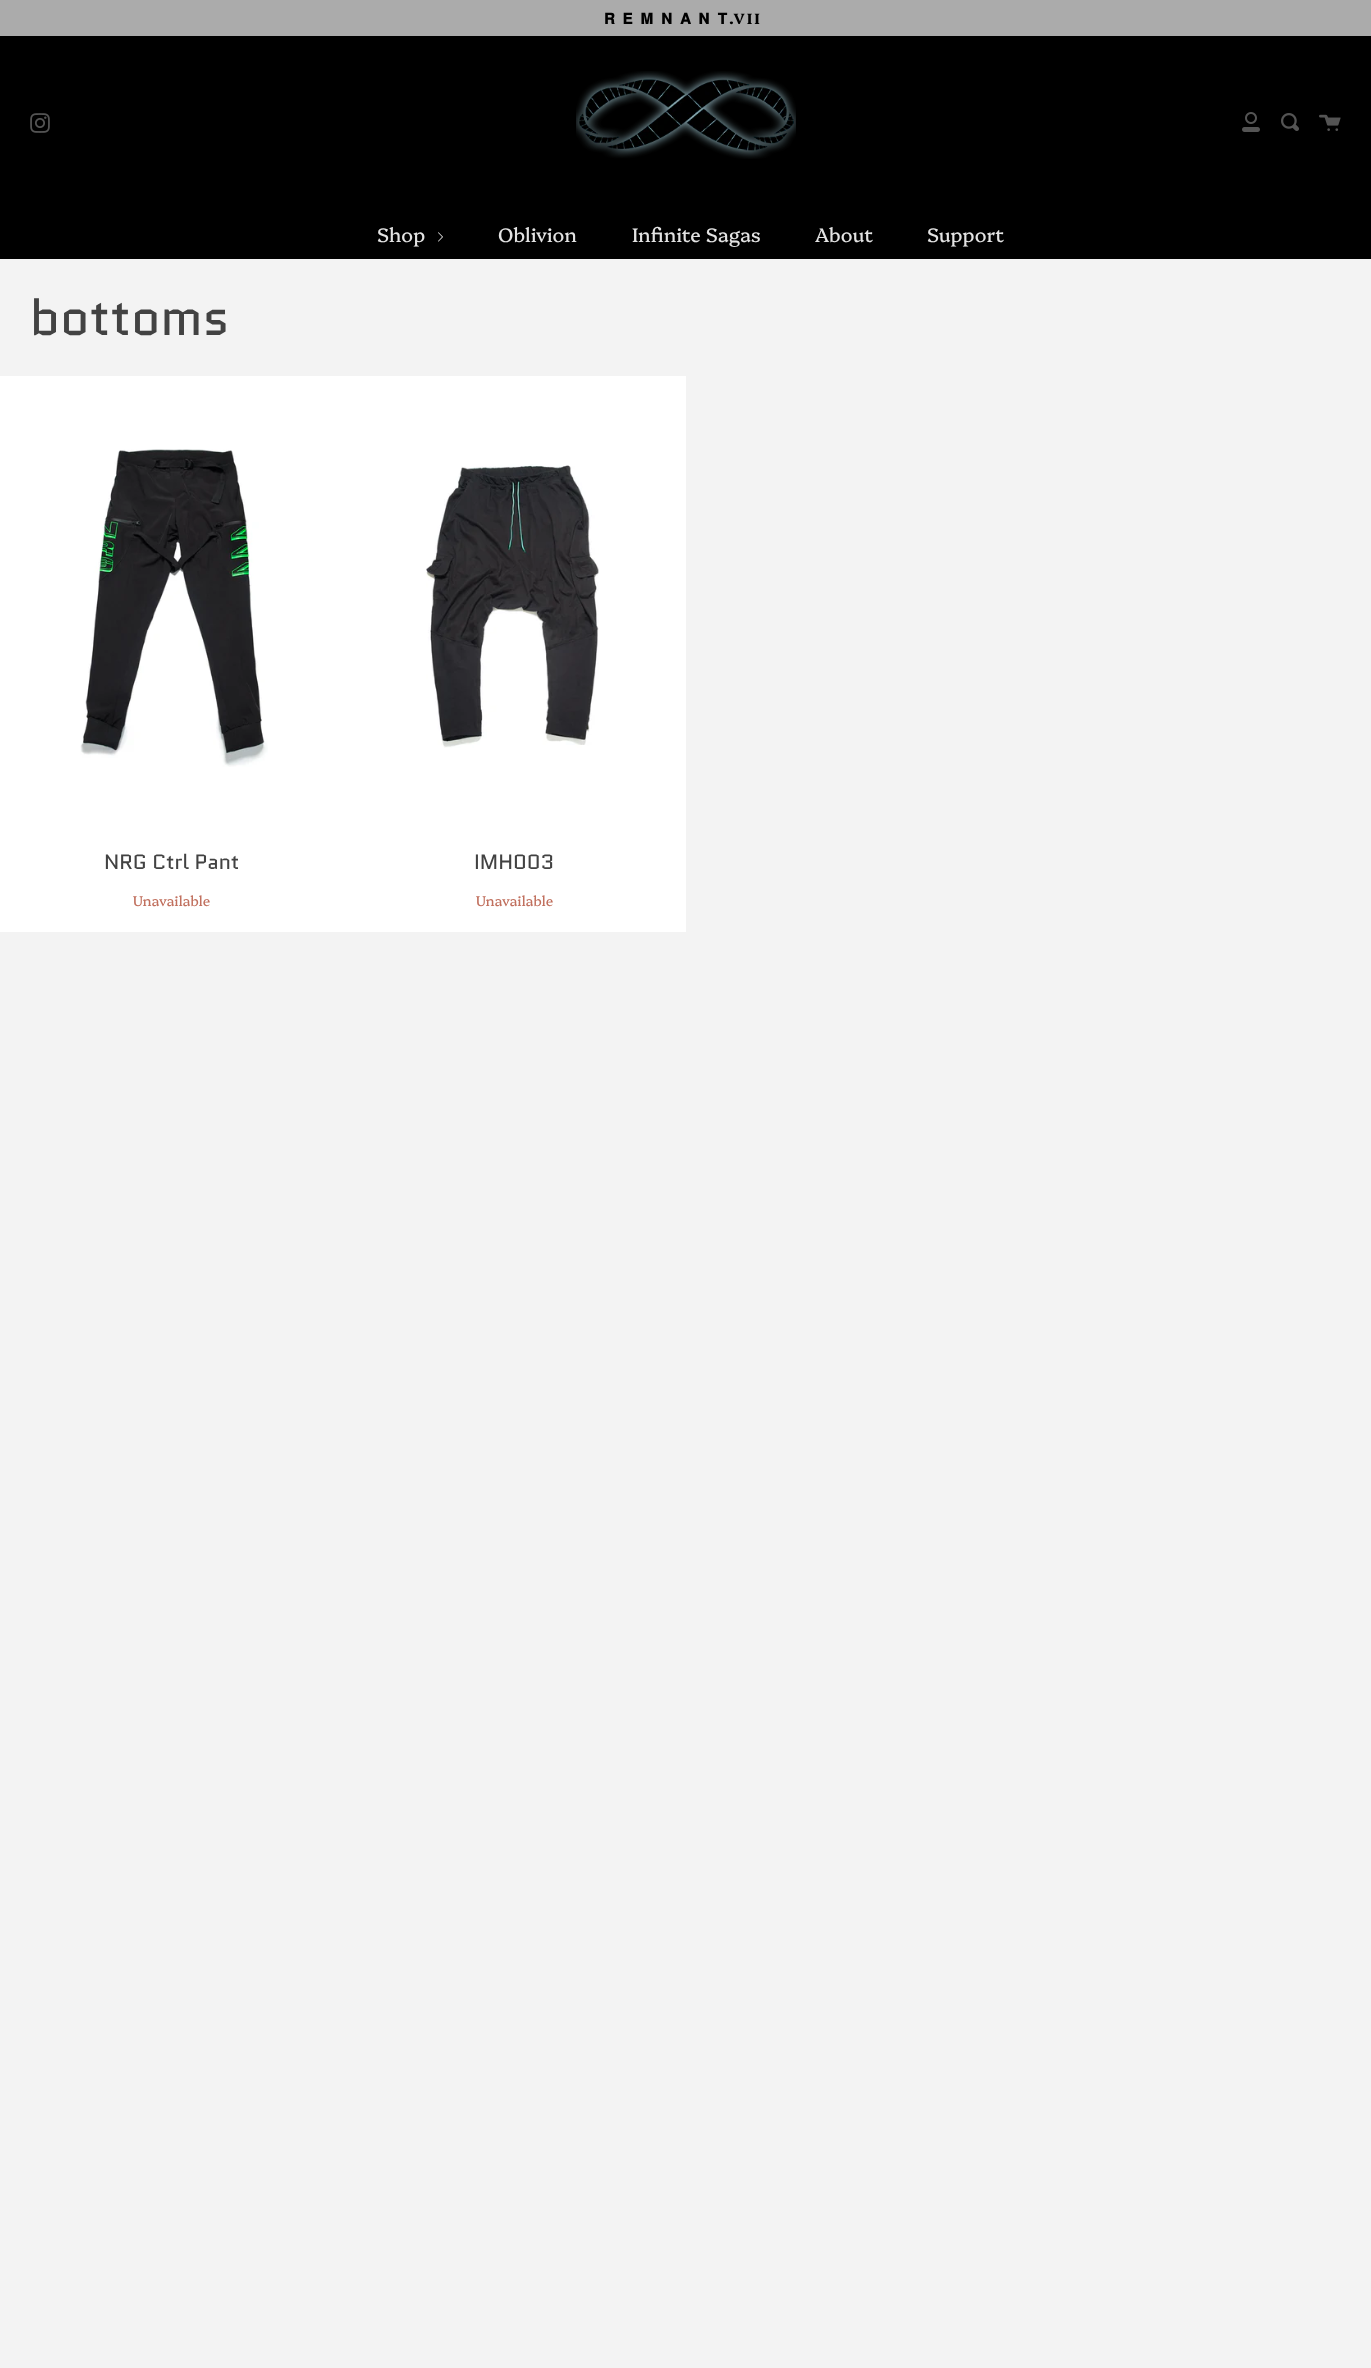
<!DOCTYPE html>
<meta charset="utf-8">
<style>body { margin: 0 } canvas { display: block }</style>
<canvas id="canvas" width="1371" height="2368"></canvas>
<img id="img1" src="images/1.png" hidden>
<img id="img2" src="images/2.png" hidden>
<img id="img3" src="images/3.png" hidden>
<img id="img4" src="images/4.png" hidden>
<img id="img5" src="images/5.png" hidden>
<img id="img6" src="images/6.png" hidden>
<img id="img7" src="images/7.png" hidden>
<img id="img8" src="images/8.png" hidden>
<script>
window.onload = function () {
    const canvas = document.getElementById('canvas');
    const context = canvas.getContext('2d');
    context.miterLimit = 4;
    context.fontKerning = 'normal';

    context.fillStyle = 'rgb(243, 243, 243)';
    context.fillRect(0, 0, 1371, 2368);
    context.fillStyle = 'rgb(171, 171, 171)';
    context.fillRect(0, 0, 1371, 36);
    context.fillStyle = 'rgb(0, 0, 0)';
    context.fillRect(0, 36, 1371, 223);
    context.drawImage(document.getElementById('img1'), 30, 113, 20, 20);
    context.drawImage(document.getElementById('img2'), 576, 71, 220, 88);
    context.drawImage(document.getElementById('img3'), 1242, 112, 18, 20);
    context.drawImage(document.getElementById('img4'), 1281, 113, 18, 18);
    context.drawImage(document.getElementById('img5'), 1319, 114, 22, 17);
    context.drawImage(document.getElementById('img6'), 438, 232, 5, 10);
    context.fillStyle = 'rgb(255, 255, 255)';
    context.fillRect(0, 376, 686, 556);
    context.drawImage(document.getElementById('img7'), 80, 449, 188, 318);
    context.drawImage(document.getElementById('img8'), 426, 464, 173, 284);
    context.letterSpacing = '2px';
    context.font = 'bold 15px FreeSans';
    context.fillStyle = 'rgb(0, 0, 0)';
    context.fillText('𝐑 𝐄 𝐌 𝐍 𝐀 𝐍 𝐓', 604, 24);
    context.font = 'bold 15px Platypi';
    context.fillText('.VII', 729, 24);
    context.letterSpacing = '0px';
    context.font = '19.5px Platypi';
    context.fillStyle = 'rgb(227, 227, 227)';
    context.fillText('Shop', 377, 242);
    context.fillText('Oblivion', 498, 242);
    context.fillText('Infinite Sagas', 632, 242);
    context.fillText('About', 815, 242);
    context.fillText('Support', 927, 242);
    context.font = '50.5px Quantico';
    context.fillStyle = 'rgb(66, 66, 66)';
    context.fillText('bottoms', 30, 335);
    context.font = '20.75px Quantico';
    context.fillText('NRG Ctrl Pant', 104, 869);
    context.font = '14px Platypi';
    context.fillStyle = 'rgb(193, 112, 94)';
    context.fillText('Unavailable', 133, 906);
    context.font = '20.75px Quantico';
    context.fillStyle = 'rgb(66, 66, 66)';
    context.fillText('IMH003', 474, 869);
    context.font = '14px Platypi';
    context.fillStyle = 'rgb(193, 112, 94)';
    context.fillText('Unavailable', 476, 906);
};
</script>
